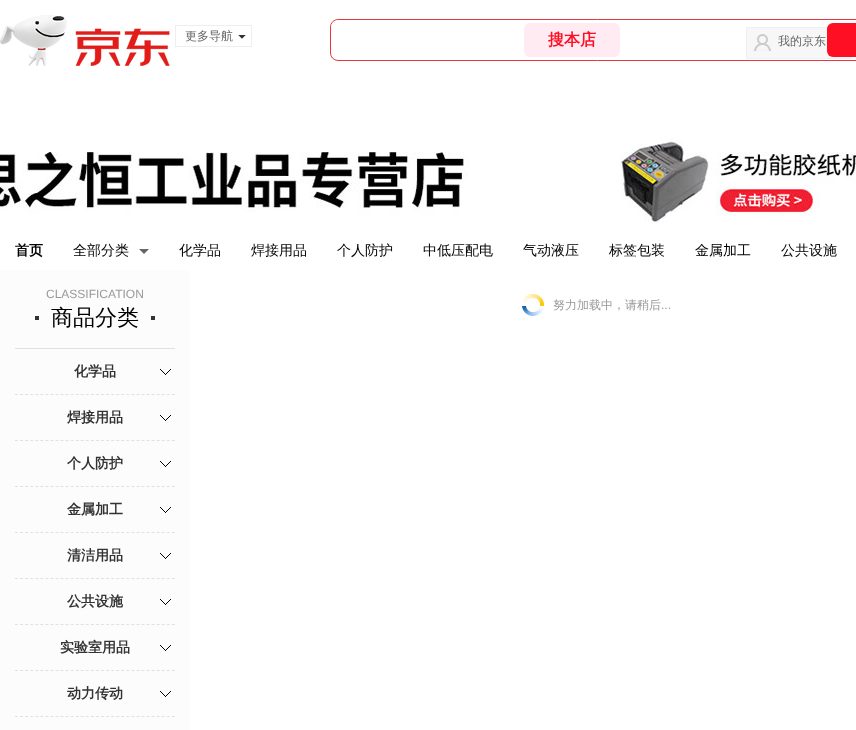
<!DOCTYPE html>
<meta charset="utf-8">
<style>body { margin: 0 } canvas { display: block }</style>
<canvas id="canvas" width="856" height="730"></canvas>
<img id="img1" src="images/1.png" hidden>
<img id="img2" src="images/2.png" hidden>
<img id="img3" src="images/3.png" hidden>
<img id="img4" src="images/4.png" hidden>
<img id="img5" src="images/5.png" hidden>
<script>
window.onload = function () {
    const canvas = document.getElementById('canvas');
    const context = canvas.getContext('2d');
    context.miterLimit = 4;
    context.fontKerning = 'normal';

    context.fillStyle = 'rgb(255, 255, 255)';
    context.fillRect(0, 0, 856, 730);
    context.drawImage(document.getElementById('img1'), 0, 15, 170, 51);
    context.strokeStyle = 'rgb(238, 238, 238)';
    context.strokeRect(175.5, 25.5, 76, 21);
    context.fillStyle = 'rgb(51, 51, 51)';
    context.beginPath();
    context.moveTo(238, 35);
    context.lineTo(246, 35);
    context.lineTo(242, 39);
    context.closePath();
    context.fill();
    context.fillStyle = 'rgb(255, 255, 255)';
    context.beginPath();
    context.moveTo(246, 35);
    context.lineTo(246, 43);
    context.lineTo(242, 39);
    context.closePath();
    context.moveTo(238, 43);
    context.lineTo(238, 35);
    context.lineTo(242, 39);
    context.closePath();
    context.fill();
    context.fillStyle = 'rgb(247, 247, 247)';
    context.fillRect(747, 28, 104, 30);
    context.drawImage(document.getElementById('img2'), 752, 34, 19, 17);
    context.strokeStyle = 'rgb(239, 239, 239)';
    context.strokeRect(746.5, 27.5, 105, 31);
    context.beginPath();
    context.roundRect(330.5, 19.5, 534, 41, 7.5);
    context.strokeStyle = 'rgb(228, 57, 60)';
    context.stroke();
    context.fillStyle = 'rgb(255, 255, 255)';
    context.beginPath();
    context.roundRect(331, 20, 195, 30, [8, 0, 0, 0]);
    context.fill();
    context.fillStyle = 'rgb(255, 235, 241)';
    context.beginPath();
    context.roundRect(524, 23, 96, 34, 6);
    context.fill();
    context.fillStyle = 'rgb(255, 15, 35)';
    context.beginPath();
    context.roundRect(827, 23, 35, 34, 6);
    context.fill();
    context.drawImage(document.getElementById('img3'), 0, 138, 856, 86);
    context.fillStyle = 'rgb(102, 102, 102)';
    context.beginPath();
    context.moveTo(139, 249);
    context.lineTo(149, 249);
    context.lineTo(144, 254);
    context.closePath();
    context.fill();
    context.fillStyle = 'rgb(252, 252, 252)';
    context.fillRect(0, 270, 190, 460);
    context.fillStyle = 'rgb(225, 225, 225)';
    context.fillRect(15, 348, 160, 1);
    context.fillStyle = 'rgb(51, 51, 51)';
    context.fillRect(35, 316, 4, 4);
    context.fillRect(151, 316, 4, 4);
    context.beginPath();
    context.moveTo(15, 394.5);
    context.lineTo(175, 394.5);
    context.strokeStyle = 'rgb(225, 225, 225)';
    context.setLineDash([3, 2.06]);
    context.stroke();
    context.drawImage(document.getElementById('img4'), 160, 369, 11, 6);
    context.beginPath();
    context.moveTo(15, 440.5);
    context.lineTo(175, 440.5);
    context.stroke();
    context.drawImage(document.getElementById('img4'), 160, 415, 11, 6);
    context.beginPath();
    context.moveTo(15, 486.5);
    context.lineTo(175, 486.5);
    context.stroke();
    context.drawImage(document.getElementById('img4'), 160, 461, 11, 6);
    context.beginPath();
    context.moveTo(15, 532.5);
    context.lineTo(175, 532.5);
    context.stroke();
    context.drawImage(document.getElementById('img4'), 160, 507, 11, 6);
    context.beginPath();
    context.moveTo(15, 578.5);
    context.lineTo(175, 578.5);
    context.stroke();
    context.drawImage(document.getElementById('img4'), 160, 553, 11, 6);
    context.beginPath();
    context.moveTo(15, 624.5);
    context.lineTo(175, 624.5);
    context.stroke();
    context.drawImage(document.getElementById('img4'), 160, 599, 11, 6);
    context.beginPath();
    context.moveTo(15, 670.5);
    context.lineTo(175, 670.5);
    context.stroke();
    context.drawImage(document.getElementById('img4'), 160, 645, 11, 6);
    context.beginPath();
    context.moveTo(15, 716.5);
    context.lineTo(175, 716.5);
    context.stroke();
    context.drawImage(document.getElementById('img4'), 160, 691, 11, 6);
    context.drawImage(document.getElementById('img5'), 522, 294, 22, 22);
    context.font = '500 12px WenQuanYi Zen Hei';
    context.fillStyle = 'rgb(102, 102, 102)';
    context.fillText('更多导航', 185, 40);
    context.font = 'bold 16px WenQuanYi Zen Hei';
    context.fillStyle = 'rgb(255, 15, 35)';
    context.fillText('搜本店', 548, 45);
    context.font = '500 12px WenQuanYi Zen Hei';
    context.fillStyle = 'rgb(102, 102, 102)';
    context.fillText('我的京东', 778, 45);
    context.font = 'bold 14px WenQuanYi Zen Hei';
    context.fillStyle = 'rgb(0, 0, 0)';
    context.fillText('首页', 15, 255);
    context.font = '500 14px WenQuanYi Zen Hei';
    context.fillText('全部分类', 73, 255);
    context.fillText('化学品', 179, 255);
    context.fillText('焊接用品', 251, 255);
    context.fillText('个人防护', 337, 255);
    context.fillText('中低压配电', 423, 255);
    context.fillText('气动液压', 523, 255);
    context.fillText('标签包装', 609, 255);
    context.fillText('金属加工', 695, 255);
    context.fillText('公共设施', 781, 255);
    context.font = '12px Liberation Sans';
    context.fillStyle = 'rgb(153, 153, 153)';
    context.fillText('CLASSIFICATION', 46, 298);
    context.font = '500 22px WenQuanYi Zen Hei';
    context.fillStyle = 'rgb(0, 0, 0)';
    context.fillText('商品分类', 51, 325);
    context.font = 'bold 14px WenQuanYi Zen Hei';
    context.fillStyle = 'rgb(51, 51, 51)';
    context.fillText('化学品', 74, 376);
    context.fillText('焊接用品', 67, 422);
    context.fillText('个人防护', 67, 468);
    context.fillText('金属加工', 67, 514);
    context.fillText('清洁用品', 67, 560);
    context.fillText('公共设施', 67, 606);
    context.fillText('实验室用品', 60, 652);
    context.fillText('动力传动', 67, 698);
    context.font = '500 12px WenQuanYi Zen Hei';
    context.fillStyle = 'rgb(153, 153, 153)';
    context.fillText('努力加载中，请稍后', 553, 309);
    context.font = '12px Liberation Sans';
    context.fillText('...', 661, 309);
};
</script>
